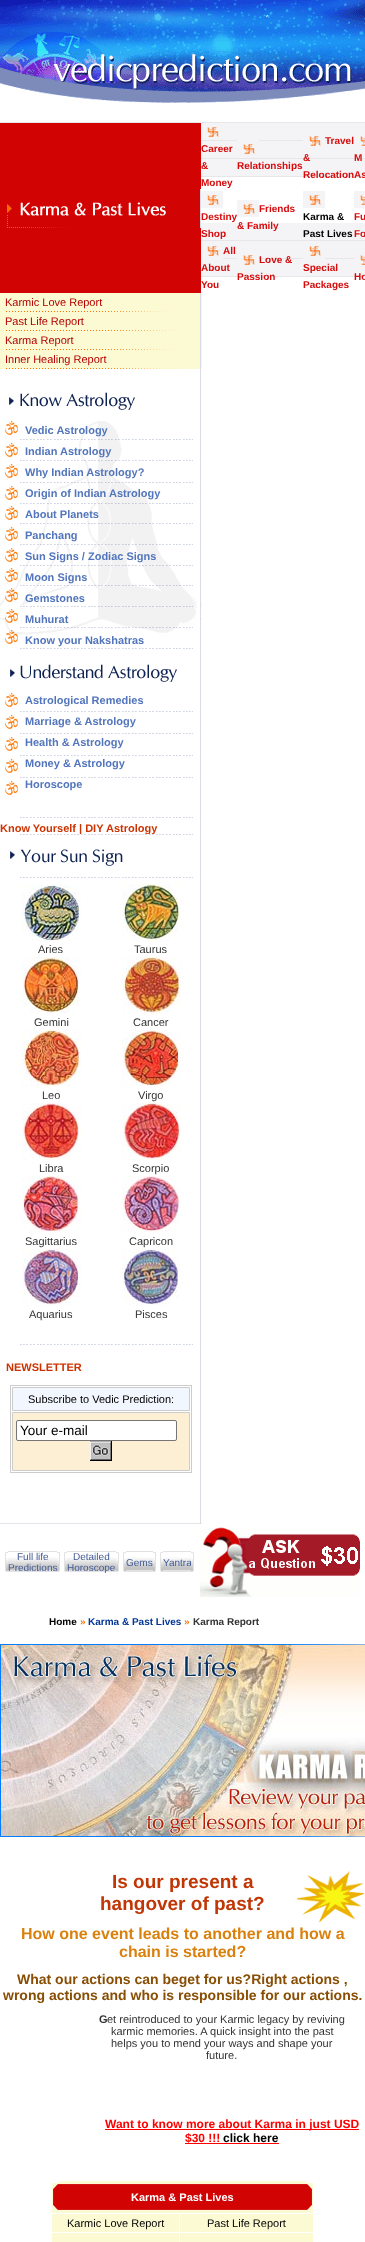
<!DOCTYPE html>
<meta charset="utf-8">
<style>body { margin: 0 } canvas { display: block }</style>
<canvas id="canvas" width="365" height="2242"></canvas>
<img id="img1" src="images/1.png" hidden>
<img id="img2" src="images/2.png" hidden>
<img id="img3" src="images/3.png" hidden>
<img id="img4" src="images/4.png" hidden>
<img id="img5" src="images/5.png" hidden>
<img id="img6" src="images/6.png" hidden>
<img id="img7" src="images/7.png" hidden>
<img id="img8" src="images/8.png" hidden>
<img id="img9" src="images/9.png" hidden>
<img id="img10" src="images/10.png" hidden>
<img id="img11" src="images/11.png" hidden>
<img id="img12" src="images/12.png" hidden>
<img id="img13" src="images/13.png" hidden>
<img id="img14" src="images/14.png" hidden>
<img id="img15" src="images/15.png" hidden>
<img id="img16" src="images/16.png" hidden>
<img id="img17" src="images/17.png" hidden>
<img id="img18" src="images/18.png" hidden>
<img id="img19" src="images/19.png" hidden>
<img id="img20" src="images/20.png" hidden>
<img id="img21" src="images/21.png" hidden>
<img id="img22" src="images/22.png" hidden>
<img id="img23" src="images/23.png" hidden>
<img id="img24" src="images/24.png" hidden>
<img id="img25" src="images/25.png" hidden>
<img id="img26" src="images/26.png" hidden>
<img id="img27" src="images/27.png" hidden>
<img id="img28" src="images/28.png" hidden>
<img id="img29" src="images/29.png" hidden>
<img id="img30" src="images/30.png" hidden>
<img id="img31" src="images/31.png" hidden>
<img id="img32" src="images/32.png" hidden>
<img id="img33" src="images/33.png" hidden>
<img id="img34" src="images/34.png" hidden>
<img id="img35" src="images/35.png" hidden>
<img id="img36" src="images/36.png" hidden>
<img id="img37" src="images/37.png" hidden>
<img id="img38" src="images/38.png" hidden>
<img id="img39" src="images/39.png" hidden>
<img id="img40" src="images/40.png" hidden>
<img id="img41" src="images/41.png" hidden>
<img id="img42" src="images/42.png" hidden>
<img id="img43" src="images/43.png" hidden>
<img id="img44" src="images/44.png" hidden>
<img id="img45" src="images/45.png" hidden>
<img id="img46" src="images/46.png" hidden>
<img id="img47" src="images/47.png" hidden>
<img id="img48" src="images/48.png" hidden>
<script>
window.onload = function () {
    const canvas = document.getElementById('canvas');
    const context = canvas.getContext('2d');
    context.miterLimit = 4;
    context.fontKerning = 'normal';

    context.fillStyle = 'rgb(255, 255, 255)';
    context.fillRect(0, 0, 365, 2242);
    context.drawImage(document.getElementById('img1'), 0, 0, 365, 51);
    context.drawImage(document.getElementById('img2'), 0, 51, 365, 52);
    context.fillStyle = 'rgb(231, 231, 233)';
    context.fillRect(0, 122, 365, 1);
    context.fillStyle = 'rgb(210, 3, 3)';
    context.fillRect(0, 123, 201, 170);
    context.drawImage(document.getElementById('img3'), 7, 189, 194, 39);
    context.drawImage(document.getElementById('img4'), 201, 123, 164, 154);
    context.drawImage(document.getElementById('img5'), 207, 127, 12, 10);
    context.drawImage(document.getElementById('img6'), 303, 136, 22, 10);
    context.drawImage(document.getElementById('img7'), 354, 136, 11, 10);
    context.drawImage(document.getElementById('img8'), 237, 140, 22, 14);
    context.drawImage(document.getElementById('img9'), 201, 191, 22, 17);
    context.drawImage(document.getElementById('img9'), 237, 200, 22, 17);
    context.drawImage(document.getElementById('img9'), 303, 191, 22, 17);
    context.drawImage(document.getElementById('img10'), 354, 191, 11, 17);
    context.drawImage(document.getElementById('img11'), 201, 246, 22, 13);
    context.drawImage(document.getElementById('img6'), 237, 255, 22, 10);
    context.drawImage(document.getElementById('img11'), 303, 246, 22, 13);
    context.drawImage(document.getElementById('img7'), 354, 255, 11, 10);
    context.fillStyle = 'rgb(217, 220, 227)';
    context.fillRect(200, 369, 1, 1154);
    context.drawImage(document.getElementById('img12'), 0, 293, 202, 76);
    context.drawImage(document.getElementById('img13'), 9, 392, 126, 18);
    context.drawImage(document.getElementById('img14'), 0, 421, 202, 228);
    context.drawImage(document.getElementById('img15'), 10, 664, 167, 18);
    context.drawImage(document.getElementById('img16'), 5, 693, 188, 102);
    context.drawImage(document.getElementById('img17'), 20, 817, 173, 1);
    context.drawImage(document.getElementById('img18'), 10, 849, 113, 17);
    context.drawImage(document.getElementById('img17'), 20, 877, 173, 1);
    context.drawImage(document.getElementById('img19'), 22, 884, 59, 57);
    context.drawImage(document.getElementById('img20'), 122, 884, 59, 57);
    context.drawImage(document.getElementById('img21'), 22, 957, 59, 57);
    context.drawImage(document.getElementById('img22'), 122, 957, 59, 57);
    context.drawImage(document.getElementById('img23'), 22, 1030, 59, 57);
    context.drawImage(document.getElementById('img24'), 122, 1030, 59, 57);
    context.drawImage(document.getElementById('img25'), 22, 1103, 59, 57);
    context.drawImage(document.getElementById('img26'), 122, 1103, 59, 57);
    context.drawImage(document.getElementById('img27'), 22, 1176, 59, 57);
    context.drawImage(document.getElementById('img28'), 122, 1176, 59, 57);
    context.drawImage(document.getElementById('img29'), 22, 1249, 59, 57);
    context.drawImage(document.getElementById('img30'), 122, 1249, 59, 57);
    context.drawImage(document.getElementById('img17'), 20, 1344, 173, 1);
    context.strokeStyle = 'rgb(204, 204, 204)';
    context.strokeRect(10.5, 1385.5, 181, 87);
    context.fillStyle = 'rgb(242, 246, 255)';
    context.beginPath();
    context.rect(12.5, 1387.5, 177, 23);
    context.fill();
    context.stroke();
    context.fillStyle = 'rgb(252, 239, 211)';
    context.beginPath();
    context.rect(12.5, 1412.5, 177, 58);
    context.fill();
    context.stroke();
    context.fillStyle = 'rgb(255, 255, 255)';
    context.beginPath();
    context.roundRect(16.5, 1420.5, 160, 20, 1.5);
    context.fill();
    context.strokeStyle = 'rgb(118, 118, 118)';
    context.stroke();
    context.drawImage(document.getElementById('img31'), 90, 1441, 22, 20);
    context.fillStyle = 'rgb(227, 231, 235)';
    context.fillRect(0, 1523, 202, 1);
    context.drawImage(document.getElementById('img32'), 5, 1552, 3, 20);
    context.drawImage(document.getElementById('img33'), 8, 1551, 49, 21);
    context.drawImage(document.getElementById('img32'), 64, 1552, 3, 20);
    context.drawImage(document.getElementById('img33'), 67, 1551, 49, 21);
    context.drawImage(document.getElementById('img34'), 116, 1552, 3, 20);
    context.drawImage(document.getElementById('img32'), 123, 1552, 3, 20);
    context.drawImage(document.getElementById('img35'), 126, 1551, 27, 21);
    context.drawImage(document.getElementById('img34'), 153, 1552, 3, 20);
    context.drawImage(document.getElementById('img32'), 160, 1552, 3, 20);
    context.drawImage(document.getElementById('img36'), 163, 1551, 28, 21);
    context.drawImage(document.getElementById('img37'), 200, 1527, 160, 70);
    context.drawImage(document.getElementById('img38'), 0, 1644, 225, 193);
    context.drawImage(document.getElementById('img39'), 225, 1644, 140, 193);
    context.drawImage(document.getElementById('img40'), 297, 1871, 67, 51);
    context.fillStyle = 'rgb(255, 0, 0)';
    context.fillRect(105, 2129, 254, 1);
    context.fillRect(185, 2143, 94, 1);
    context.drawImage(document.getElementById('img41'), 51, 2183, 8, 7);
    context.drawImage(document.getElementById('img42'), 59, 2181, 247, 9);
    context.drawImage(document.getElementById('img43'), 306, 2183, 8, 7);
    context.drawImage(document.getElementById('img44'), 51, 2190, 8, 14);
    context.fillStyle = 'rgb(210, 3, 3)';
    context.fillRect(59, 2190, 247, 14);
    context.drawImage(document.getElementById('img45'), 306, 2190, 8, 14);
    context.drawImage(document.getElementById('img46'), 51, 2204, 8, 9);
    context.drawImage(document.getElementById('img47'), 59, 2204, 247, 9);
    context.drawImage(document.getElementById('img48'), 306, 2204, 8, 9);
    context.fillStyle = 'rgb(252, 250, 211)';
    context.fillRect(52, 2214, 127, 18);
    context.fillRect(180, 2214, 133, 18);
    context.fillRect(52, 2233, 127, 9);
    context.fillRect(180, 2233, 133, 9);
    context.font = 'bold 10px Liberation Sans';
    context.fillStyle = 'rgb(214, 12, 12)';
    context.fillText('Career', 201, 152);
    context.fillText('&', 201, 169);
    context.fillText('Money', 201, 186);
    context.fillText('Travel', 325, 144);
    context.fillText('&', 303, 161);
    context.fillText('RelocationAs', 303, 178);
    context.fillText('M', 354, 161);
    context.fillText('Relationships', 237, 169);
    context.fillText('Destiny', 201, 220);
    context.fillText('Shop', 201, 237);
    context.fillText('Friends', 259, 212);
    context.fillText('& Family', 237, 229);
    context.fillStyle = 'rgb(0, 0, 0)';
    context.fillText('Karma &', 303, 220);
    context.fillText('Past Lives', 303, 237);
    context.fillStyle = 'rgb(214, 12, 12)';
    context.fillText('Fu', 354, 220);
    context.fillText('Fo', 354, 237);
    context.fillText('All', 223, 254);
    context.fillText('About', 201, 271);
    context.fillText('You', 201, 288);
    context.fillText('Love &', 259, 263);
    context.fillText('Passion', 237, 280);
    context.fillText('Special', 303, 271);
    context.fillText('Packages', 303, 288);
    context.fillText('Ho', 354, 280);
    context.font = '11px Liberation Sans';
    context.fillStyle = 'rgb(178, 1, 1)';
    context.fillText('Karmic Love Report', 5, 306);
    context.fillText('Past Life Report', 5, 325);
    context.fillText('Karma Report', 5, 344);
    context.fillText('Inner Healing Report', 5, 363);
    context.font = 'bold 11px Liberation Sans';
    context.fillStyle = 'rgb(82, 117, 188)';
    context.fillText('Vedic Astrology', 25, 434);
    context.fillText('Indian Astrology', 25, 455);
    context.fillText('Why Indian Astrology?', 25, 476);
    context.fillText('Origin of Indian', 25, 497);
    context.fillText('Astrology', 109, 497);
    context.fillText('About Planets', 25, 518);
    context.fillText('Panchang', 25, 539);
    context.fillText('Sun Signs / Zodiac Signs', 25, 560);
    context.fillText('Moon Signs', 25, 581);
    context.fillText('Gemstones', 25, 602);
    context.fillText('Muhurat', 25, 623);
    context.fillText('Know your Nakshatras', 25, 644);
    context.fillText('Astrological Remedies', 25, 704);
    context.fillText('Marriage & Astrology', 25, 725);
    context.fillText('Health & Astrology', 25, 746);
    context.fillText('Money & Astrology', 25, 767);
    context.fillText('Horoscope', 25, 788);
    context.fillStyle = 'rgb(204, 51, 0)';
    context.fillText('Know Yourself | DIY Astrology', 0, 832);
    context.drawImage(document.getElementById('img17'), 20, 834, 173, 1);
    context.font = '11px Liberation Sans';
    context.fillStyle = 'rgb(51, 51, 51)';
    context.fillText('Aries', 38, 953);
    context.fillText('Taurus', 134, 953);
    context.fillText('Gemini', 34, 1026);
    context.fillText('Cancer', 133, 1026);
    context.fillText('Leo', 42, 1099);
    context.fillText('Virgo', 138, 1099);
    context.fillText('Libra', 39, 1172);
    context.fillText('Scorpio', 132, 1172);
    context.fillText('Sagittarius', 25, 1245);
    context.fillText('Capricon', 129, 1245);
    context.fillText('Aquarius', 29, 1318);
    context.fillText('Pisces', 135, 1318);
    context.font = 'bold 11px Liberation Sans';
    context.fillStyle = 'rgb(204, 51, 0)';
    context.fillText('NEWSLETTER', 6, 1371);
    context.font = '11px Liberation Sans';
    context.fillStyle = 'rgb(0, 0, 0)';
    context.fillText('Subscribe to Vedic Prediction:', 28, 1403);
    context.font = '13.5px Liberation Sans';
    context.fillText('Your e-mail', 20, 1435);
    context.font = '10px Liberation Sans';
    context.fillStyle = 'rgb(67, 91, 149)';
    context.fillText('Full life', 17, 1560);
    context.fillText('Predictions', 8, 1571);
    context.drawImage(document.getElementById('img34'), 57, 1552, 3, 20);
    context.fillText('Detailed', 73, 1560);
    context.fillText('Horoscope', 67, 1571);
    context.fillText('Gems', 126, 1566);
    context.fillText('Yantra', 163, 1566);
    context.drawImage(document.getElementById('img34'), 191, 1552, 3, 20);
    context.font = 'bold 10px Liberation Sans';
    context.fillStyle = 'rgb(0, 0, 0)';
    context.fillText('Home', 49, 1625);
    context.fillStyle = 'rgb(255, 114, 0)';
    context.fillText('»', 80, 1625);
    context.fillStyle = 'rgb(2, 52, 152)';
    context.fillText('Karma & Past Lives', 88, 1625);
    context.fillStyle = 'rgb(255, 114, 0)';
    context.fillText('»', 184, 1625);
    context.fillStyle = 'rgb(51, 51, 51)';
    context.fillText('Karma Report', 193, 1625);
    context.font = 'bold 19px Liberation Sans';
    context.fillStyle = 'rgb(192, 54, 5)';
    context.fillText('Is our present a', 112, 1888);
    context.fillText('hangover of past?', 100, 1910);
    context.font = 'bold 16px Liberation Sans';
    context.fillStyle = 'rgb(218, 129, 13)';
    context.fillText('How one event leads to another and how a', 21, 1939);
    context.fillText('chain is started?', 119, 1957);
    context.font = 'bold 14px Liberation Sans';
    context.fillStyle = 'rgb(136, 78, 4)';
    context.fillText('What our actions can beget for us?Right actions ,', 17, 1984);
    context.fillText('wrong actions and who is responsible for our actions.', 3, 2000);
    context.font = 'bold 11px Liberation Sans';
    context.fillStyle = 'rgb(51, 51, 51)';
    context.fillText('G', 99, 2023);
    context.font = '11px Liberation Sans';
    context.fillText('et reintroduced to your Karmic legacy by reviving', 107, 2023);
    context.fillText('karmic memories. A quick insight into the past', 111, 2035);
    context.fillText('helps you to mend your ways and shape your', 111, 2047);
    context.fillText('future.', 206, 2059);
    context.font = 'bold 12px Liberation Sans';
    context.fillStyle = 'rgb(255, 0, 0)';
    context.fillText('Want to know more about Karma in just USD', 105, 2128);
    context.fillText('$30 !!!', 185, 2142);
    context.fillStyle = 'rgb(0, 0, 0)';
    context.fillText('click here', 223, 2142);
    context.font = 'bold 11px Liberation Sans';
    context.fillStyle = 'rgb(255, 255, 255)';
    context.fillText('Karma & Past Lives', 131, 2201);
    context.font = '11px Liberation Sans';
    context.fillStyle = 'rgb(0, 0, 0)';
    context.fillText('Karmic Love Report', 67, 2227);
    context.fillText('Past Life Report', 207, 2227);
};
</script>
